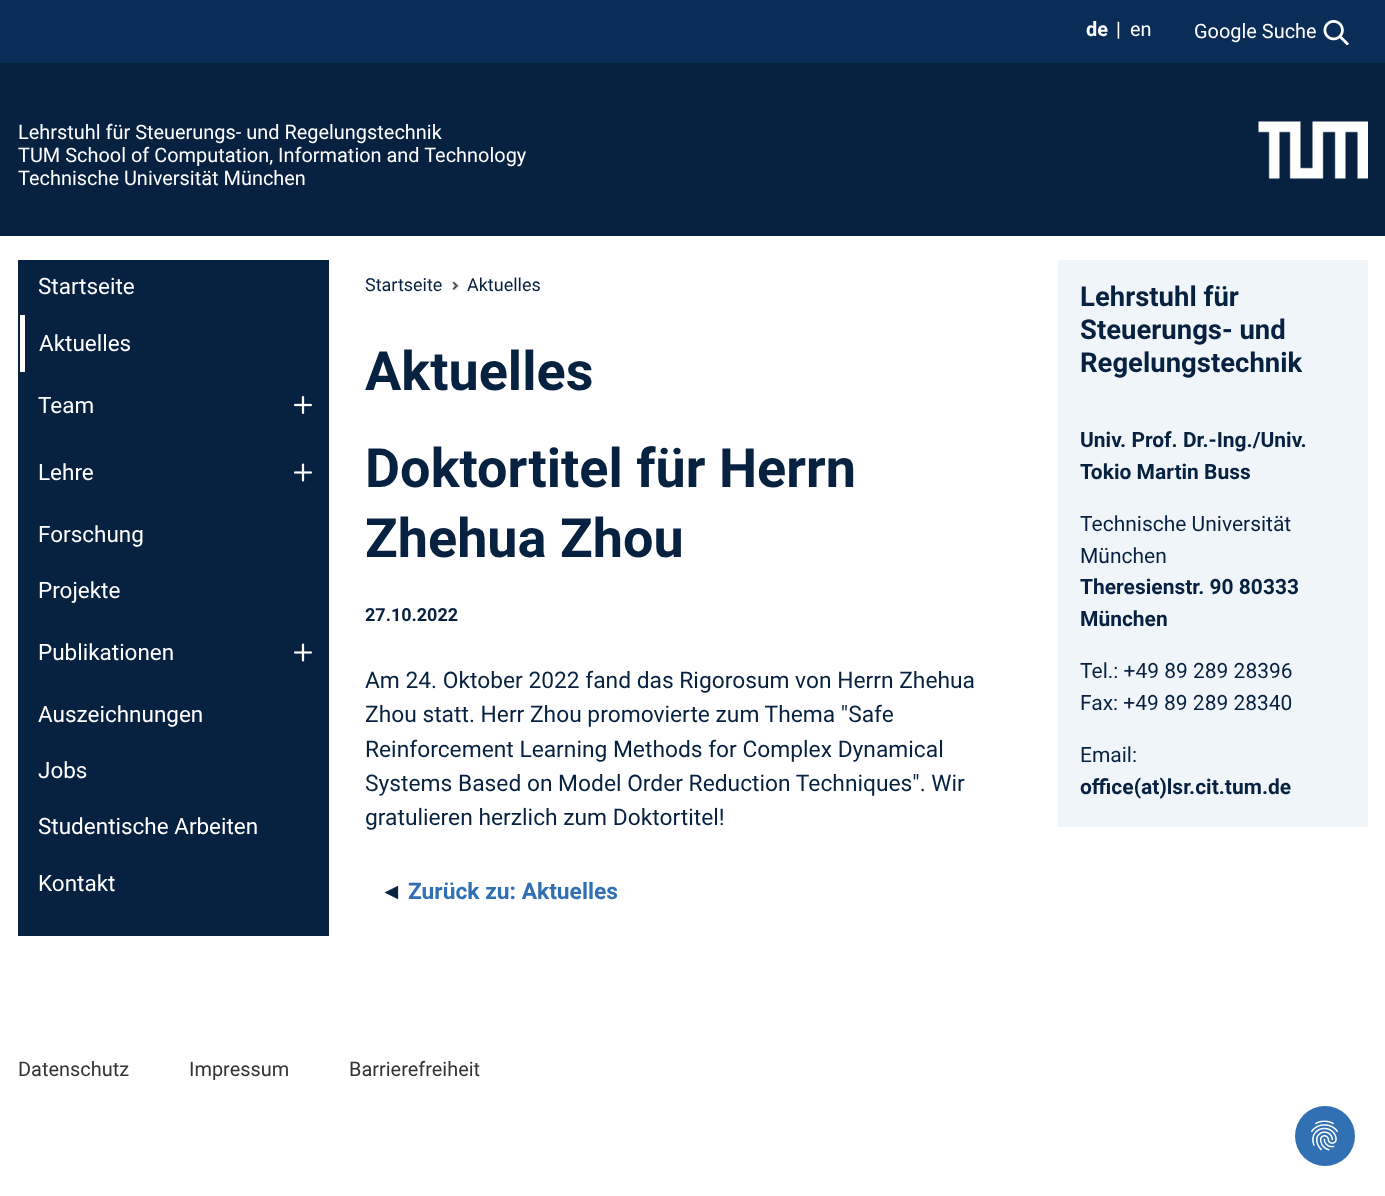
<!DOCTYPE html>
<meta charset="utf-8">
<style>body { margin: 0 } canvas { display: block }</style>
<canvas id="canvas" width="1385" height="1196"></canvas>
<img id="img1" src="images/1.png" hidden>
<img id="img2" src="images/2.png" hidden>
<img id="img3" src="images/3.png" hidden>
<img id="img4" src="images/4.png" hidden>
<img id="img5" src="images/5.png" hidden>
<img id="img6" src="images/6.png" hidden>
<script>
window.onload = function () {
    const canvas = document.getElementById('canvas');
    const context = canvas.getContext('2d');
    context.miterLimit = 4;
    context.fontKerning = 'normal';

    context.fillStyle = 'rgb(255, 255, 255)';
    context.fillRect(0, 0, 1385, 1196);
    context.fillStyle = 'rgb(10, 45, 87)';
    context.fillRect(0, 0, 1385, 63);
    context.drawImage(document.getElementById('img1'), 1323, 20, 26, 25);
    context.fillStyle = 'rgb(7, 33, 64)';
    context.fillRect(0, 63, 1385, 173);
    context.drawImage(document.getElementById('img2'), 1258, 121, 110, 58);
    context.fillRect(18, 260, 311, 676);
    context.fillStyle = 'rgb(255, 255, 255)';
    context.fillRect(20, 315, 5, 57);
    context.drawImage(document.getElementById('img3'), 294, 396, 18, 18);
    context.drawImage(document.getElementById('img4'), 294, 463, 18, 19);
    context.drawImage(document.getElementById('img4'), 294, 643, 18, 19);
    context.drawImage(document.getElementById('img5'), 452, 281, 8, 9);
    context.fillStyle = 'rgb(240, 245, 250)';
    context.fillRect(1058, 260, 310, 567);
    context.fillStyle = 'rgb(48, 112, 179)';
    context.beginPath();
    context.arc(1325, 1136, 30, 0, 2 * Math.PI);
    context.fill();
    context.drawImage(document.getElementById('img6'), 1311, 1120, 27, 31);
    context.font = 'bold 19.95px Roboto';
    context.fillStyle = 'rgb(255, 255, 255)';
    context.fillText('de', 1086, 36);
    context.font = '19.95px Roboto';
    context.fillText('|', 1116, 36);
    context.fillText('en', 1130, 36);
    context.fillText('Google Suche', 1194, 38);
    context.fillText('Lehrstuhl für Steuerungs- und Regelungstechnik', 18, 139);
    context.fillText('TUM School of Computation, Information and Technology', 18, 162);
    context.fillText('Technische Universität München', 18, 185);
    context.font = '22.5px Roboto';
    context.fillText('Startseite', 38, 294);
    context.fillText('Aktuelles', 39, 351);
    context.fillText('Team', 38, 413);
    context.fillText('Lehre', 38, 480);
    context.fillText('Forschung', 38, 542);
    context.fillText('Projekte', 38, 598);
    context.fillText('Publikationen', 38, 660);
    context.fillText('Auszeichnungen', 38, 722);
    context.fillText('Jobs', 38, 778);
    context.fillText('Studentische Arbeiten', 38, 834);
    context.fillText('Kontakt', 38, 891);
    context.font = '18px Roboto';
    context.fillStyle = 'rgb(7, 33, 64)';
    context.fillText('Startseite', 365, 291);
    context.fillText('Aktuelles', 467, 291);
    context.font = 'bold 54px Roboto';
    context.fillText('Aktuelles', 365, 390);
    context.fillText('Doktortitel für Herrn', 365, 487);
    context.fillText('Zhehua Zhou', 365, 557);
    context.font = 'bold 18px Roboto';
    context.fillText('27.10.2022', 365, 621);
    context.font = '22.8px Roboto';
    context.fillText('Am 24. Oktober 2022 fand das Rigorosum von Herrn Zhehua', 365, 688);
    context.fillText('Zhou statt. Herr Zhou promovierte zum Thema "Safe', 365, 722);
    context.fillText('Reinforcement Learning Methods for Complex Dynamical', 365, 757);
    context.fillText('Systems Based on Model Order Reduction Techniques". Wir', 365, 791);
    context.fillText('gratulieren herzlich zum Doktortitel!', 365, 825);
    context.font = '22.8px Liberation Sans';
    context.fillText('◄', 380, 899);
    context.font = 'bold 22.8px Roboto';
    context.fillStyle = 'rgb(48, 112, 179)';
    context.fillText('Zurück zu: Aktuelles', 408, 899);
    context.font = 'bold 27.5px Roboto';
    context.fillStyle = 'rgb(7, 33, 64)';
    context.fillText('Lehrstuhl für', 1080, 306);
    context.fillText('Steuerungs- und', 1080, 339);
    context.fillText('Regelungstechnik', 1080, 372);
    context.font = 'bold 21px Roboto';
    context.fillText('Univ. Prof. Dr.-Ing./Univ.', 1080, 447);
    context.fillText('Tokio Martin Buss', 1080, 479);
    context.font = '21px Roboto';
    context.fillText('Technische Universität', 1080, 531);
    context.fillText('München', 1080, 563);
    context.font = 'bold 21px Roboto';
    context.fillText('Theresienstr. 90 80333', 1080, 594);
    context.fillText('München', 1080, 626);
    context.font = '21px Roboto';
    context.fillText('Tel.: +49 89 289 28396', 1080, 678);
    context.fillText('Fax: +49 89 289 28340', 1080, 710);
    context.fillText('Email:', 1080, 762);
    context.font = 'bold 21px Roboto';
    context.fillText('office(at)lsr.cit.tum.de', 1080, 794);
    context.font = '19.95px Roboto';
    context.fillStyle = 'rgb(51, 51, 51)';
    context.fillText('Datenschutz', 18, 1076);
    context.fillText('Impressum', 189, 1076);
    context.fillText('Barrierefreiheit', 349, 1076);
};
</script>
